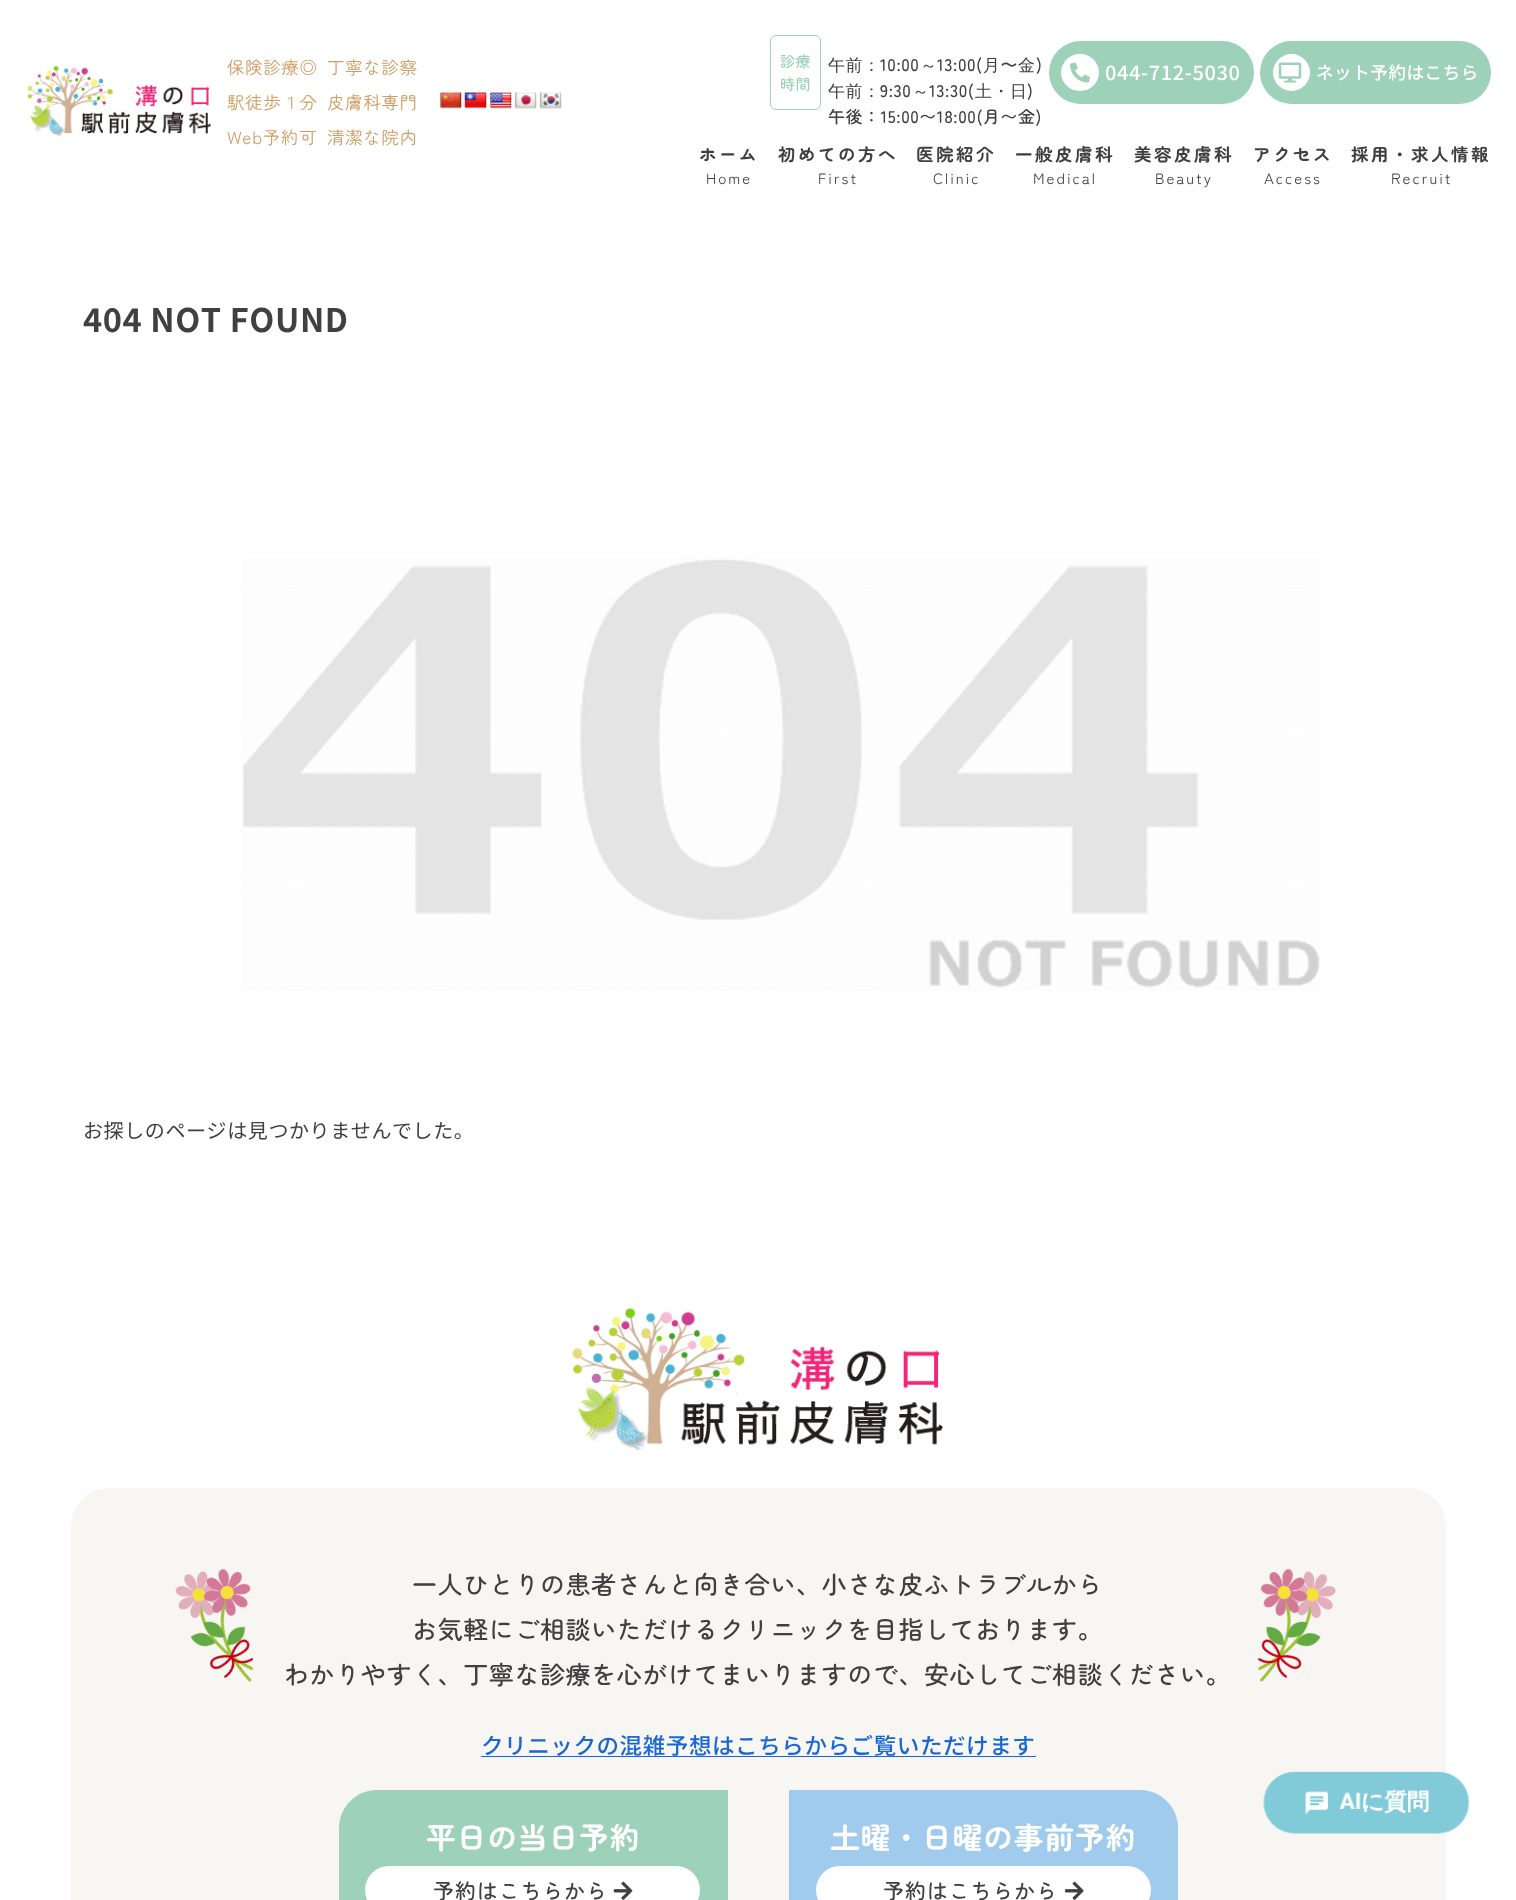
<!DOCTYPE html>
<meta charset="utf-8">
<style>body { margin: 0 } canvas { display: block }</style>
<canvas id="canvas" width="1516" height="1900"></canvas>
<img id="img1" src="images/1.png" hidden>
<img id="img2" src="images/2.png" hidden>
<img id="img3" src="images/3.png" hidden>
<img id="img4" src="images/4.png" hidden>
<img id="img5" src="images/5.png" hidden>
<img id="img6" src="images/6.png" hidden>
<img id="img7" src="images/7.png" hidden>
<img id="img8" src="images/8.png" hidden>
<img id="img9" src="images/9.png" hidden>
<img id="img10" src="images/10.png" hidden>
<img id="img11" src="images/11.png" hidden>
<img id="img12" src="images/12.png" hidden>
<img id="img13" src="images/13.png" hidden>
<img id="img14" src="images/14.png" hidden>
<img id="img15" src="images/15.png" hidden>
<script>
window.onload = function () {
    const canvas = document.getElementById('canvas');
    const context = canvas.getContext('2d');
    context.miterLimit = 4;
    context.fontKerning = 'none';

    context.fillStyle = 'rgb(255, 255, 255)';
    context.fillRect(0, 0, 1516, 1900);
    context.drawImage(document.getElementById('img1'), 27, 65, 184, 72);
    context.drawImage(document.getElementById('img2'), 439, 92, 23, 17);
    context.drawImage(document.getElementById('img3'), 463, 92, 24, 18);
    context.drawImage(document.getElementById('img4'), 489, 92, 23, 17);
    context.drawImage(document.getElementById('img5'), 514, 92, 23, 17);
    context.drawImage(document.getElementById('img6'), 539, 92, 23, 17);
    context.beginPath();
    context.roundRect(770.5, 35.5, 50, 74, 5.5);
    context.strokeStyle = 'rgb(158, 209, 186)';
    context.stroke();
    context.fillStyle = 'rgb(158, 209, 186)';
    context.beginPath();
    context.roundRect(1049, 41, 205, 63, 31.5);
    context.fill();
    context.fillStyle = 'rgb(255, 255, 255)';
    context.beginPath();
    context.roundRect(1061, 54, 38, 37, 18.5);
    context.fill();
    context.drawImage(document.getElementById('img7'), 1070, 62, 20, 21);
    context.fillStyle = 'rgb(158, 209, 186)';
    context.beginPath();
    context.roundRect(1260, 41, 231, 63, 31.5);
    context.fill();
    context.fillStyle = 'rgb(255, 255, 255)';
    context.beginPath();
    context.arc(1291.5, 72.5, 18.5, 0, 2 * Math.PI);
    context.fill();
    context.drawImage(document.getElementById('img8'), 1278, 62, 24, 21);
    context.drawImage(document.getElementById('img9'), 241, 557, 1079, 434);
    context.drawImage(document.getElementById('img10'), 572, 1308, 371, 143);
    context.fillStyle = 'rgb(248, 246, 242)';
    context.beginPath();
    context.roundRect(71, 1488, 1375, 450, 38);
    context.fill();
    context.drawImage(document.getElementById('img11'), 175, 1568, 79, 114);
    context.drawImage(document.getElementById('img12'), 1257, 1569, 79, 113);
    context.fillStyle = 'rgb(25, 103, 210)';
    context.fillRect(481, 1756, 555, 1);
    context.fillStyle = 'rgb(158, 209, 186)';
    context.beginPath();
    context.moveTo(377, 1790);
    context.lineTo(728, 1790);
    context.lineTo(728, 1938);
    context.lineTo(377, 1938);
    context.bezierCurveTo(356, 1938, 339, 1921, 339, 1900);
    context.lineTo(339, 1828);
    context.bezierCurveTo(339, 1807, 356, 1790, 377, 1790);
    context.closePath();
    context.fill();
    context.fillStyle = 'rgb(255, 255, 255)';
    context.beginPath();
    context.roundRect(365, 1866, 335, 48, 24);
    context.fill();
    context.drawImage(document.getElementById('img13'), 613, 1881, 20, 19);
    context.fillStyle = 'rgb(160, 203, 237)';
    context.beginPath();
    context.moveTo(789, 1790);
    context.lineTo(1140, 1790);
    context.bezierCurveTo(1161, 1790, 1178, 1807, 1178, 1828);
    context.lineTo(1178, 1900);
    context.bezierCurveTo(1178, 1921, 1161, 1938, 1140, 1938);
    context.lineTo(789, 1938);
    context.closePath();
    context.fill();
    context.fillStyle = 'rgb(255, 255, 255)';
    context.beginPath();
    context.roundRect(816, 1866, 335, 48, 24);
    context.fill();
    context.drawImage(document.getElementById('img14'), 1065, 1881, 19, 19);
    context.drawImage(document.getElementById('img15'), 1263, 1771, 207, 63);
    context.letterSpacing = '0.6px';
    context.font = '17.5px Zen Maru Gothic';
    context.fillStyle = 'rgb(206, 157, 100)';
    context.fillText('保険診療◎', 227, 74);
    context.fillText('丁寧な診察', 327, 74);
    context.fillText('駅徒歩１分', 227, 109);
    context.fillText('皮膚科専門', 327, 109);
    context.fillText('Web予約可', 227, 144);
    context.fillText('清潔な院内', 327, 144);
    context.font = '500 15px Zen Maru Gothic';
    context.fillStyle = 'rgb(158, 209, 186)';
    context.fillText('診療', 780, 67);
    context.fillText('時間', 780, 90);
    context.font = '500 16.9px WenQuanYi Zen Hei';
    context.fillStyle = 'rgb(64, 64, 64)';
    context.fillText('午前：', 828, 71);
    context.font = '500 16.9px Zen Maru Gothic';
    context.fillText('10:00', 880, 71);
    context.font = '500 16.9px WenQuanYi Zen Hei';
    context.fillText('～', 920, 71);
    context.font = '500 16.9px Zen Maru Gothic';
    context.fillText('13:00(', 937, 71);
    context.font = '500 16.9px WenQuanYi Zen Hei';
    context.fillText('月〜金', 983, 71);
    context.font = '500 16.9px Zen Maru Gothic';
    context.fillText(')', 1036, 71);
    context.font = '500 16.9px WenQuanYi Zen Hei';
    context.fillText('午前：', 828, 97);
    context.font = '500 16.9px Zen Maru Gothic';
    context.fillText('9:30', 880, 97);
    context.font = '500 16.9px WenQuanYi Zen Hei';
    context.fillText('～', 912, 97);
    context.font = '500 16.9px Zen Maru Gothic';
    context.fillText('13:30(', 929, 97);
    context.font = '500 16.9px WenQuanYi Zen Hei';
    context.fillText('土・日', 975, 97);
    context.font = '500 16.9px Zen Maru Gothic';
    context.fillText(')', 1027, 97);
    context.fillText('午後：15:00〜18:00(月〜金)', 828, 123);
    context.font = '500 20px Noto Sans JP';
    context.fillStyle = 'rgb(255, 255, 255)';
    context.fillText('044-712-5030', 1105, 80);
    context.font = '500 17.5px Noto Sans JP';
    context.fillText('ネット予約はこちら', 1316, 79);
    context.letterSpacing = '2.5px';
    context.font = 'bold 17.5px Zen Maru Gothic';
    context.fillStyle = 'rgb(64, 64, 64)';
    context.fillText('ホーム', 699, 161);
    context.letterSpacing = '2px';
    context.font = '15px Zen Maru Gothic';
    context.fillText('Home', 706, 184);
    context.letterSpacing = '2.5px';
    context.font = 'bold 17.5px Zen Maru Gothic';
    context.fillText('初めての方へ', 778, 161);
    context.letterSpacing = '2px';
    context.font = '15px Zen Maru Gothic';
    context.fillText('First', 818, 184);
    context.letterSpacing = '2.5px';
    context.font = 'bold 17.5px Zen Maru Gothic';
    context.fillText('医院紹介', 916, 161);
    context.letterSpacing = '2px';
    context.font = '15px Zen Maru Gothic';
    context.fillText('Clinic', 933, 184);
    context.letterSpacing = '2.5px';
    context.font = 'bold 17.5px Zen Maru Gothic';
    context.fillText('一般皮膚科', 1015, 161);
    context.letterSpacing = '2px';
    context.font = '15px Zen Maru Gothic';
    context.fillText('Medical', 1033, 184);
    context.letterSpacing = '2.5px';
    context.font = 'bold 17.5px Zen Maru Gothic';
    context.fillText('美容皮膚科', 1134, 161);
    context.letterSpacing = '2px';
    context.font = '15px Zen Maru Gothic';
    context.fillText('Beauty', 1155, 184);
    context.letterSpacing = '2.5px';
    context.font = 'bold 17.5px Zen Maru Gothic';
    context.fillText('アクセス', 1253, 161);
    context.letterSpacing = '2px';
    context.font = '15px Zen Maru Gothic';
    context.fillText('Access', 1264, 184);
    context.letterSpacing = '2.5px';
    context.font = 'bold 17.5px Zen Maru Gothic';
    context.fillText('採用・求人情報', 1351, 161);
    context.letterSpacing = '2px';
    context.font = '15px Zen Maru Gothic';
    context.fillText('Recruit', 1391, 184);
    context.letterSpacing = '0.6px';
    context.font = 'bold 32.5px Noto Sans JP';
    context.fillText('404 NOT FOUND', 83, 332);
    context.font = '20px Noto Sans JP';
    context.fillText('お探しのページは見つかりませんでした。', 83, 1138);
    context.font = '500 25px Zen Maru Gothic';
    context.fillText('一人ひとりの患者さんと向き合い、小さな皮ふトラブルから', 412, 1594);
    context.fillText('お気軽にご相談いただけるクリニックを目指しております。', 412, 1639);
    context.fillText('わかりやすく、丁寧な診療を心がけてまいりますので、安心してご相談ください。', 284, 1684);
    context.font = '500 22.5px Noto Sans JP';
    context.fillStyle = 'rgb(25, 103, 210)';
    context.fillText('クリニックの混雑予想はこちらからご覧いただけます', 481, 1754);
    context.font = 'bold 30px Zen Maru Gothic';
    context.fillStyle = 'rgb(255, 255, 255)';
    context.fillText('平日の当日予約', 426, 1849);
    context.font = '500 21.25px Zen Maru Gothic';
    context.fillStyle = 'rgb(64, 64, 64)';
    context.fillText('予約はこちらから', 433, 1899);
    context.font = 'bold 30px Zen Maru Gothic';
    context.fillStyle = 'rgb(255, 255, 255)';
    context.fillText('土曜・日曜の事前予約', 830, 1849);
    context.font = '500 21.25px Zen Maru Gothic';
    context.fillStyle = 'rgb(64, 64, 64)';
    context.fillText('予約はこちらから', 883, 1899);
};
</script>
